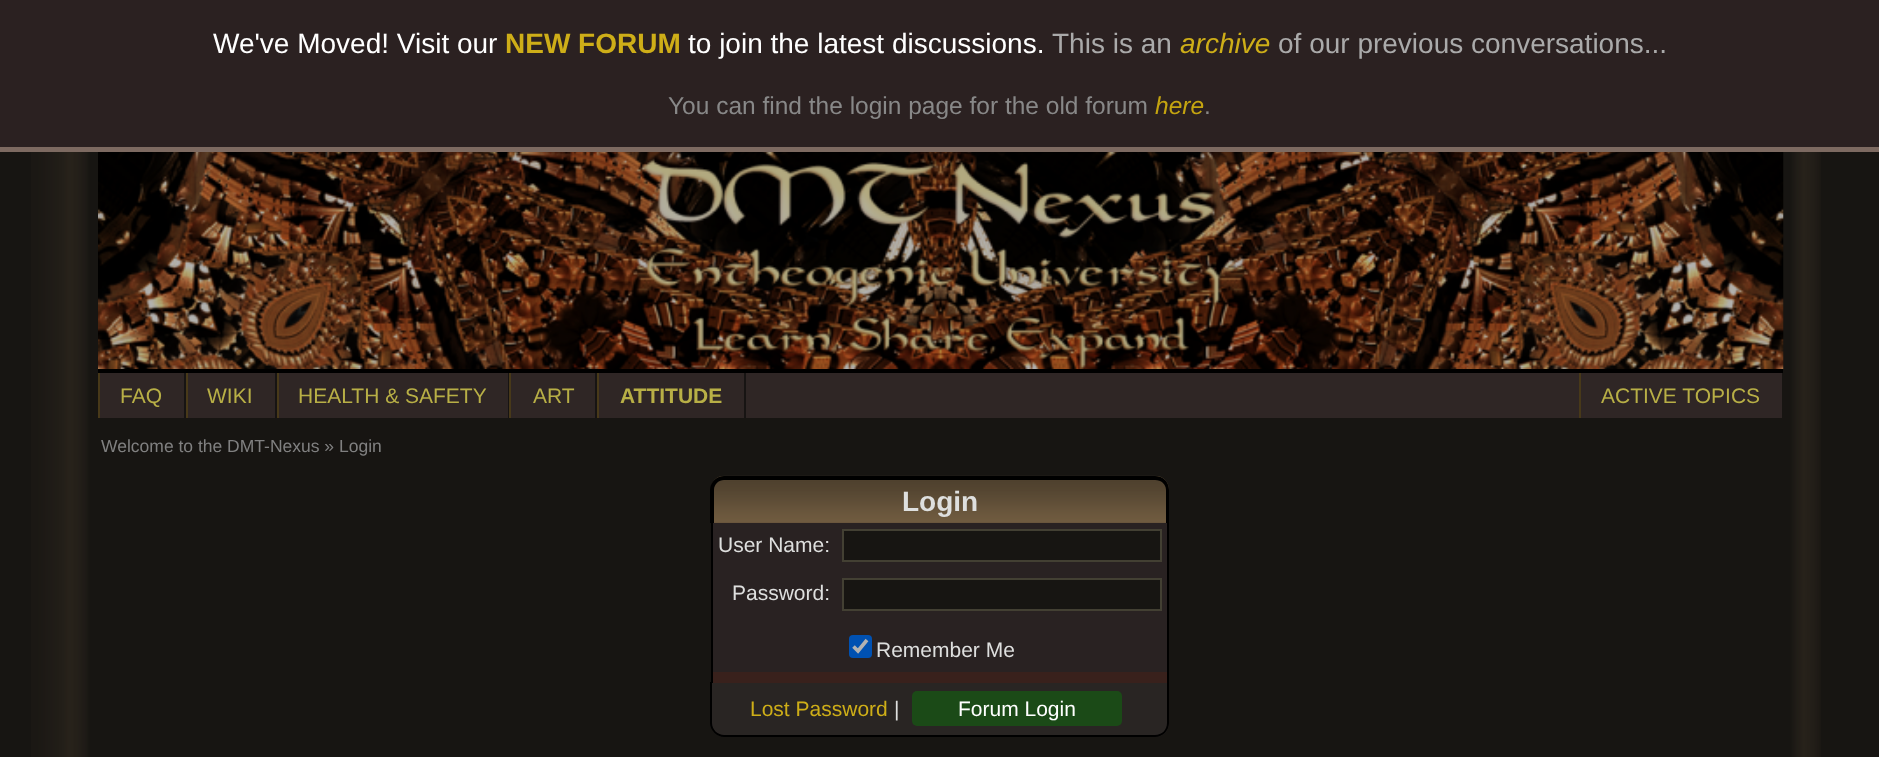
<!DOCTYPE html>
<meta charset="utf-8">
<style>body { margin: 0 } canvas { display: block }</style>
<canvas id="canvas" width="1879" height="757"></canvas>
<img id="img1" src="images/1.png" hidden>
<img id="img2" src="images/2.png" hidden>
<img id="img3" src="images/3.png" hidden>
<script>
window.onload = function () {
    const canvas = document.getElementById('canvas');
    const context = canvas.getContext('2d');
    context.miterLimit = 4;
    context.fontKerning = 'normal';

    context.fillStyle = 'rgb(34, 31, 27)';
    context.fillRect(0, 0, 1879, 757);
    context.drawImage(document.getElementById('img1'), 31, 152, 1790, 605);
    context.drawImage(document.getElementById('img2'), 98, 152, 1686, 217);
    context.fillStyle = 'rgb(68, 55, 54)';
    context.fillRect(100, 373, 1682, 45);
    context.fillStyle = 'rgb(0, 0, 0)';
    context.fillRect(98, 369, 1685, 4);
    context.fillStyle = 'rgb(34, 29, 28)';
    context.fillRect(184, 373, 2, 45);
    context.fillStyle = 'rgb(103, 82, 37)';
    context.fillRect(98, 373, 2, 45);
    context.fillStyle = 'rgb(34, 29, 28)';
    context.fillRect(275, 373, 2, 45);
    context.fillStyle = 'rgb(103, 82, 37)';
    context.fillRect(186, 373, 2, 45);
    context.fillStyle = 'rgb(34, 29, 28)';
    context.fillRect(508, 373, 1, 45);
    context.fillStyle = 'rgb(103, 82, 37)';
    context.fillRect(277, 373, 2, 45);
    context.fillStyle = 'rgb(34, 29, 28)';
    context.fillRect(595, 373, 2, 45);
    context.fillStyle = 'rgb(103, 82, 37)';
    context.fillRect(509, 373, 2, 45);
    context.fillStyle = 'rgb(34, 29, 28)';
    context.fillRect(744, 373, 2, 45);
    context.fillStyle = 'rgb(103, 82, 37)';
    context.fillRect(597, 373, 2, 45);
    context.fillRect(1579, 373, 2, 45);
    context.drawImage(document.getElementById('img3'), 710, 475, 459, 48);
    context.fillStyle = 'rgb(0, 0, 0)';
    context.beginPath();
    context.moveTo(724, 476);
    context.lineTo(1155, 476);
    context.bezierCurveTo(1163, 476, 1169, 482, 1169, 490);
    context.lineTo(1169, 523);
    context.lineTo(710, 523);
    context.lineTo(710, 490);
    context.bezierCurveTo(710, 482, 717, 476, 724, 476);
    context.closePath();
    context.moveTo(724, 480);
    context.lineTo(1155, 480);
    context.bezierCurveTo(1161, 480, 1166, 484, 1166, 490);
    context.lineTo(1166, 523);
    context.lineTo(714, 523);
    context.lineTo(714, 490);
    context.bezierCurveTo(714, 484, 719, 480, 724, 480);
    context.closePath();
    context.fill('evenodd');
    context.fillStyle = 'rgb(60, 50, 50)';
    context.fillRect(713, 523, 454, 44);
    context.fillStyle = 'rgb(0, 0, 0)';
    context.fillRect(711, 523, 2, 160);
    context.fillRect(1167, 523, 2, 160);
    context.fillStyle = 'rgb(34, 31, 27)';
    context.beginPath();
    context.rect(843, 530, 318, 31);
    context.fill();
    context.strokeStyle = 'rgb(96, 92, 74)';
    context.lineWidth = 2;
    context.stroke();
    context.fillStyle = 'rgb(60, 50, 50)';
    context.fillRect(713, 567, 454, 53);
    context.fillStyle = 'rgb(34, 31, 27)';
    context.beginPath();
    context.rect(843, 579, 318, 31);
    context.fill();
    context.stroke();
    context.fillStyle = 'rgb(60, 50, 50)';
    context.fillRect(713, 620, 454, 52);
    context.fillStyle = 'rgb(0, 117, 255)';
    context.beginPath();
    context.roundRect(849, 635, 23, 23, 4);
    context.fill();
    context.beginPath();
    context.moveTo(853.5, 646.5);
    context.lineTo(858, 651);
    context.lineTo(867, 640);
    context.strokeStyle = 'rgb(255, 255, 255)';
    context.lineWidth = 3.6;
    context.stroke();
    context.fillStyle = 'rgb(82, 48, 41)';
    context.fillRect(713, 672, 454, 11);
    context.fillStyle = 'rgb(59, 53, 51)';
    context.beginPath();
    context.roundRect(711, 683, 458, 54, [0, 0, 14, 14]);
    context.fill();
    context.fillStyle = 'rgb(0, 0, 0)';
    context.beginPath();
    context.moveTo(710, 682);
    context.lineTo(1169, 682);
    context.lineTo(1169, 723);
    context.bezierCurveTo(1169, 730, 1163, 737, 1155, 737);
    context.lineTo(724, 737);
    context.bezierCurveTo(717, 737, 710, 730, 710, 723);
    context.closePath();
    context.moveTo(712, 682);
    context.lineTo(1167, 682);
    context.lineTo(1167, 723);
    context.bezierCurveTo(1167, 730, 1162, 735, 1155, 735);
    context.lineTo(724, 735);
    context.bezierCurveTo(718, 735, 712, 730, 712, 723);
    context.closePath();
    context.fill('evenodd');
    context.fillStyle = 'rgb(40, 107, 33)';
    context.beginPath();
    context.roundRect(912, 691, 210, 35, 5);
    context.fill();
    context.fillStyle = 'rgba(0, 0, 0, 0.3)';
    context.filter = 'blur(7px)';
    context.beginPath();
    context.rect(-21, -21, 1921, 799);
    context.fill();
    context.filter = 'none';
    context.fillStyle = 'rgb(43, 33, 33)';
    context.fillRect(0, 0, 1879, 147);
    context.fillStyle = 'rgb(125, 106, 97)';
    context.fillRect(0, 147, 1879, 5);
    context.font = '28px Liberation Sans';
    context.fillStyle = 'rgb(255, 255, 255)';
    context.fillText('We\'ve Moved! Visit our', 213, 53);
    context.font = 'bold 28px Liberation Sans';
    context.fillStyle = 'rgb(206, 174, 24)';
    context.fillText('NEW FORUM', 505, 53);
    context.font = '28px Liberation Sans';
    context.fillStyle = 'rgb(255, 255, 255)';
    context.fillText('to join the latest discussions.', 688, 53);
    context.fillStyle = 'rgb(170, 170, 170)';
    context.fillText('This is an', 1052, 53);
    context.font = 'italic 28px Liberation Sans';
    context.fillStyle = 'rgb(206, 174, 24)';
    context.fillText('archive', 1180, 53);
    context.font = '28px Liberation Sans';
    context.fillStyle = 'rgb(170, 170, 170)';
    context.fillText('of our previous conversations...', 1278, 53);
    context.font = '24.5px Liberation Sans';
    context.fillStyle = 'rgb(136, 136, 136)';
    context.fillText('You can find the login page for the old forum', 668, 114);
    context.font = 'italic 24.5px Liberation Sans';
    context.fillStyle = 'rgb(196, 164, 16)';
    context.fillText('here', 1155, 114);
    context.font = '24.5px Liberation Sans';
    context.fillStyle = 'rgb(136, 136, 136)';
    context.fillText('.', 1204, 114);
    context.font = '21px Liberation Sans';
    context.fillStyle = 'rgb(184, 175, 70)';
    context.fillText('FAQ', 120, 403);
    context.fillText('WIKI', 207, 403);
    context.fillText('HEALTH & SAFETY', 298, 403);
    context.fillText('ART', 533, 403);
    context.font = 'bold 21px Liberation Sans';
    context.fillText('ATTITUDE', 620, 403);
    context.font = '21px Liberation Sans';
    context.fillText('ACTIVE TOPICS', 1601, 403);
    context.font = '17.5px Liberation Sans';
    context.fillStyle = 'rgb(128, 128, 128)';
    context.fillText('Welcome to the DMT-Nexus » Login', 101, 452);
    context.font = 'bold 28px Liberation Sans';
    context.fillStyle = 'rgb(222, 223, 222)';
    context.fillText('Login', 902, 511);
    context.font = '21px Liberation Sans';
    context.fillText('User Name:', 718, 552);
    context.fillText('Password:', 732, 600);
    context.fillText('Remember Me', 876, 657);
    context.fillStyle = 'rgb(206, 174, 24)';
    context.fillText('Lost Password', 750, 716);
    context.fillStyle = 'rgb(222, 223, 222)';
    context.fillText('|', 894, 716);
    context.fillStyle = 'rgb(255, 255, 255)';
    context.fillText('Forum Login', 958, 716);
};
</script>
